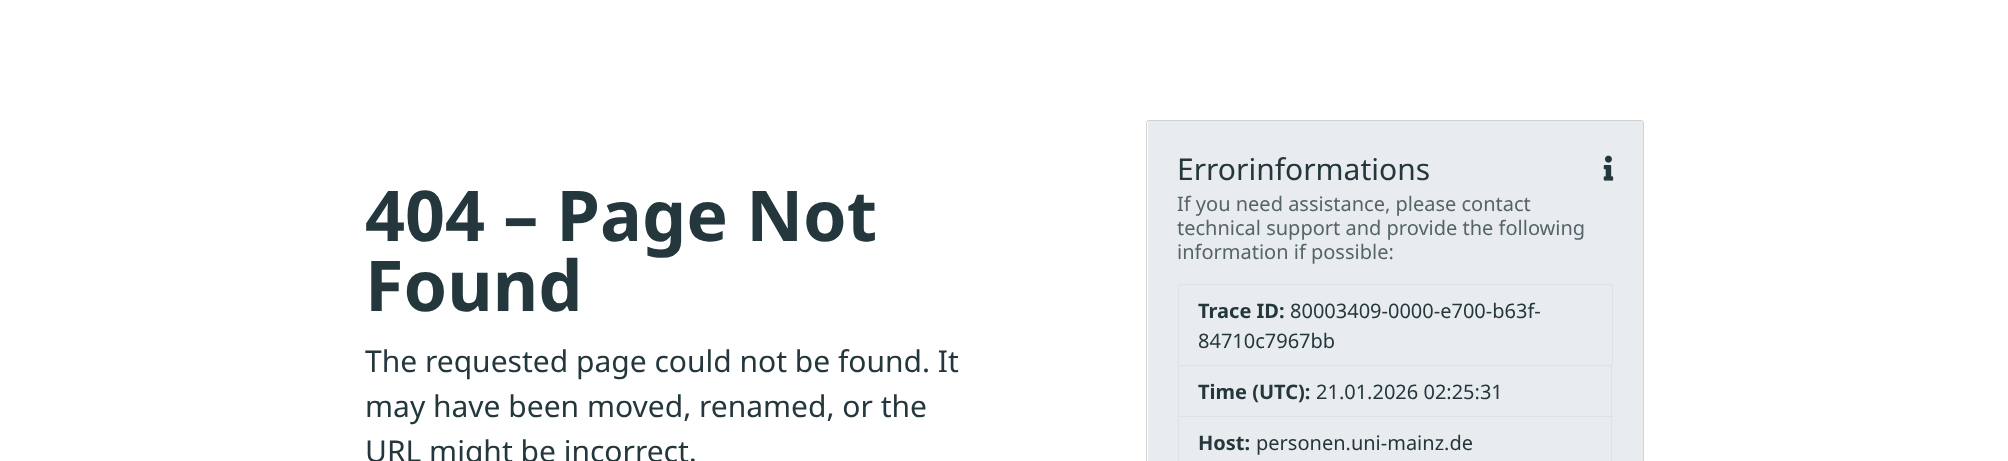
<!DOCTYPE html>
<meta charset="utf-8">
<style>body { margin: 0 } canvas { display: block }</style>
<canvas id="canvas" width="2008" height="461"></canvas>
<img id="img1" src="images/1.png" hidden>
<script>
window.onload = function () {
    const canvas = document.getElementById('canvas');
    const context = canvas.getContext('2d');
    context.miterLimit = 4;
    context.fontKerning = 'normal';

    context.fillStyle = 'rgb(255, 255, 255)';
    context.fillRect(0, 0, 2008, 461);
    context.beginPath();
    context.roundRect(1146.5, 120.5, 497, 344, 2);
    context.strokeStyle = 'rgb(210, 210, 210)';
    context.stroke();
    context.fillStyle = 'rgb(233, 236, 239)';
    context.fillRect(1148, 121, 495, 340);
    context.drawImage(document.getElementById('img1'), 1603, 155, 11, 26);
    context.beginPath();
    context.roundRect(1178.5, 284.5, 434, 81, [2, 2, 0, 0]);
    context.strokeStyle = 'rgb(222, 226, 230)';
    context.stroke();
    context.fillStyle = 'rgb(222, 226, 230)';
    context.fillRect(1611, 366, 1, 95);
    context.fillRect(1178, 416, 435, 1);
    context.fillRect(1178, 366, 1, 95);
    context.font = 'bold 70px Noto Sans';
    context.fillStyle = 'rgb(35, 55, 60)';
    context.fillText('404 – Page Not', 365, 241);
    context.fillText('Found', 365, 311);
    context.font = '30px Noto Sans';
    context.fillText('The requested page could not be found. It', 365, 372);
    context.fillText('may have been moved, renamed, or the', 365, 417);
    context.fillText('URL might be incorrect.', 365, 462);
    context.fillText('Errorinformations', 1177, 180);
    context.font = '20px Noto Sans';
    context.fillStyle = 'rgb(85, 100, 105)';
    context.fillText('If you need assistance, please contact', 1177, 211);
    context.fillText('technical support and provide the following', 1177, 235);
    context.fillText('information if possible:', 1177, 259);
    context.font = 'bold 20px Noto Sans';
    context.fillStyle = 'rgb(35, 55, 60)';
    context.fillText('Trace ID:', 1198, 318);
    context.font = '20px Noto Sans';
    context.fillText('80003409-0000-e700-b63f-', 1290, 318);
    context.fillText('84710c7967bb', 1198, 348);
    context.font = 'bold 20px Noto Sans';
    context.fillText('Time (UTC):', 1198, 399);
    context.font = '20px Noto Sans';
    context.fillText('21.01.2026 02:25:31', 1316, 399);
    context.font = 'bold 20px Noto Sans';
    context.fillText('Host:', 1198, 450);
    context.font = '20px Noto Sans';
    context.fillText('personen.uni-mainz.de', 1256, 450);
};
</script>
